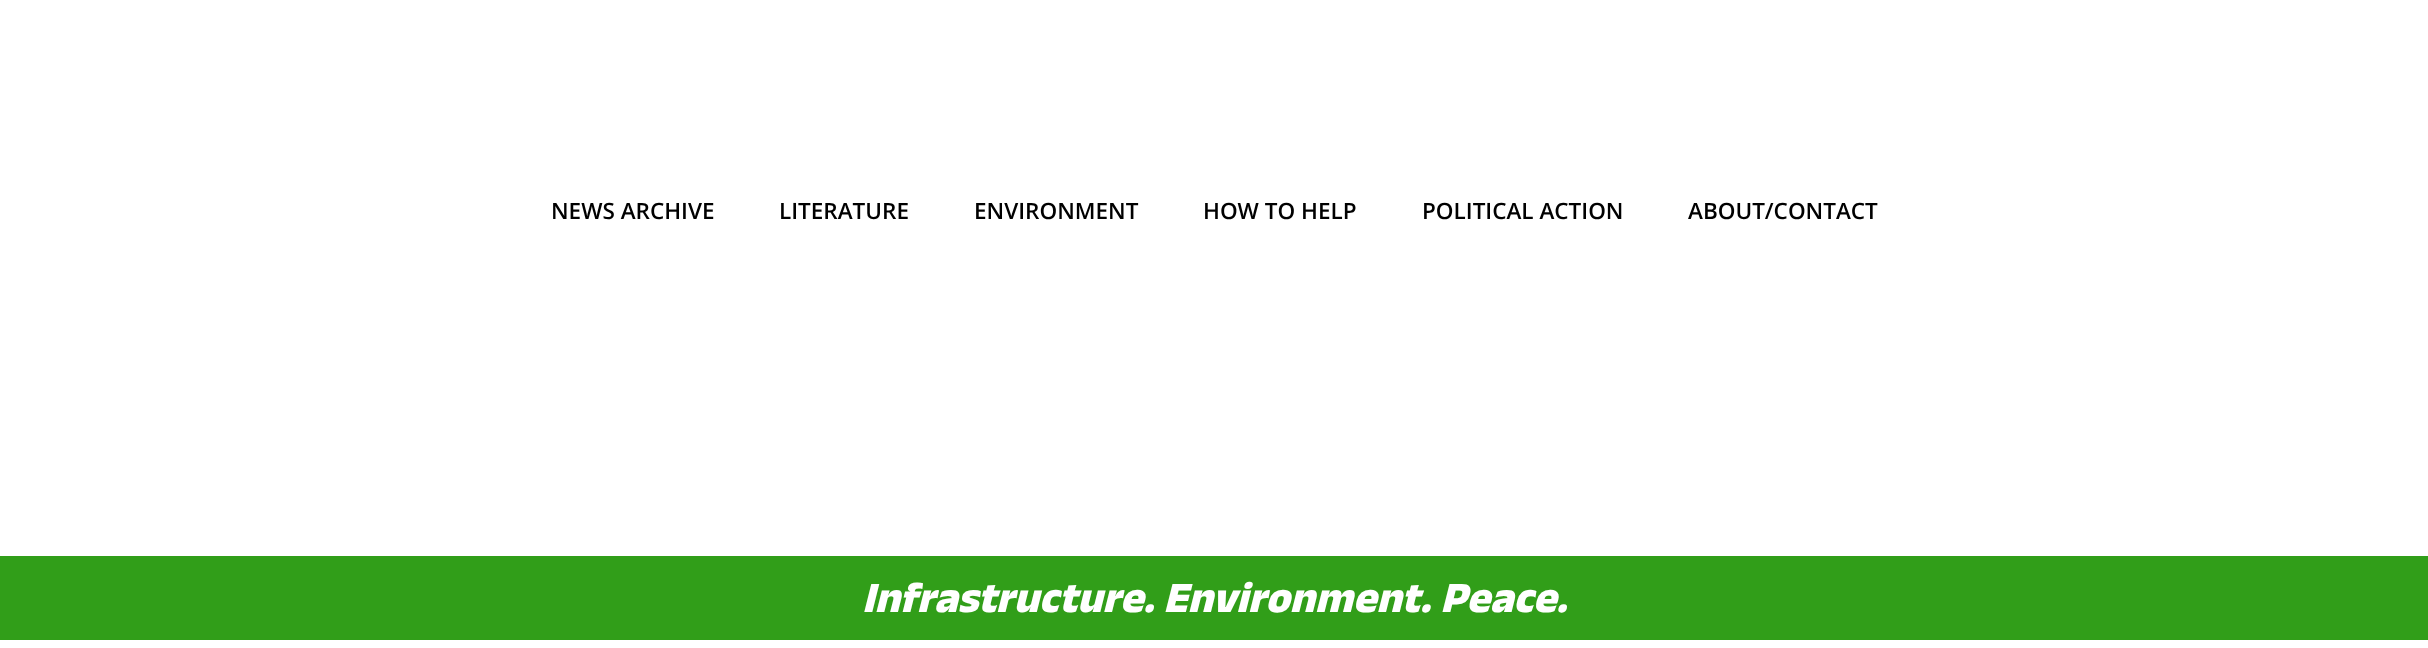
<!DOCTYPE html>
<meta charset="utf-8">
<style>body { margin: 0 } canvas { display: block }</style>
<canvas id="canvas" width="2428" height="648"></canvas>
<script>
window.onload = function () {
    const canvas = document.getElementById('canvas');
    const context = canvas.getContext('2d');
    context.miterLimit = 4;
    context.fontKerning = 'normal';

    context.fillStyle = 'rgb(255, 255, 255)';
    context.fillRect(0, 0, 2428, 648);
    context.fillStyle = 'rgb(49, 158, 25)';
    context.fillRect(0, 556, 2428, 84);
    context.font = '600 22.5px Open Sans';
    context.fillStyle = 'rgb(0, 0, 0)';
    context.fillText('NEWS ARCHIVE', 551, 219);
    context.fillText('LITERATURE', 779, 219);
    context.fillText('ENVIRONMENT', 974, 219);
    context.fillText('HOW TO HELP', 1203, 219);
    context.fillText('POLITICAL ACTION', 1422, 219);
    context.fillText('ABOUT/CONTACT', 1688, 219);
    context.font = 'italic 800 43.75px Anek Devanagari';
    context.fillStyle = 'rgb(255, 255, 255)';
    context.fillText('Infrastructure. Environment. Peace.', 862, 612);
};
</script>
